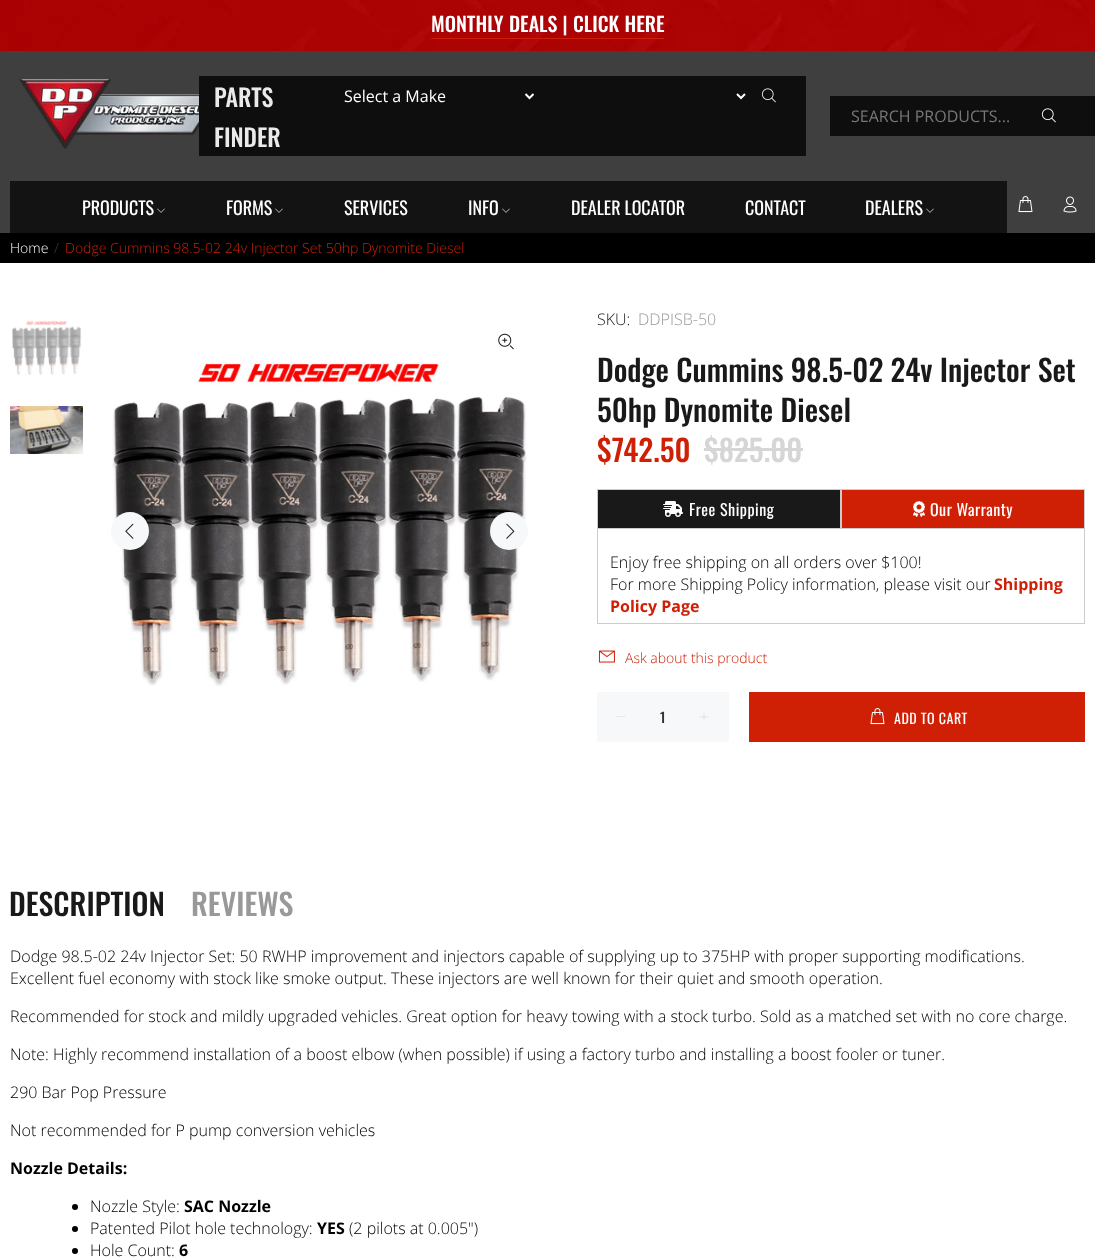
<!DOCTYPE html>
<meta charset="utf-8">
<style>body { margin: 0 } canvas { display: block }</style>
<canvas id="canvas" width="1095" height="1258"></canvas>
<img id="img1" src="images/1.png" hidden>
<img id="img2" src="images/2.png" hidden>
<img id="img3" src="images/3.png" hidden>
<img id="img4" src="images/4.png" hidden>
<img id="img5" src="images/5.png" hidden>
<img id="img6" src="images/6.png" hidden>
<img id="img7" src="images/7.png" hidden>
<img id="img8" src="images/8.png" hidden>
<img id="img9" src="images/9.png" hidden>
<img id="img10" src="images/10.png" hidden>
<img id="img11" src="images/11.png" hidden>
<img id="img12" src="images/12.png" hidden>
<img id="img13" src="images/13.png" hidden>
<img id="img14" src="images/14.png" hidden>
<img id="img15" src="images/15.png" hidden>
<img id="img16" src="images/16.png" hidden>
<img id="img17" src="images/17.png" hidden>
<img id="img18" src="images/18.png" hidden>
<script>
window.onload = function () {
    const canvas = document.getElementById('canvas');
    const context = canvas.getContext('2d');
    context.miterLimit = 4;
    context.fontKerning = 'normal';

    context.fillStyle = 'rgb(255, 255, 255)';
    context.fillRect(0, 0, 1095, 1258);
    context.fillStyle = 'rgb(63, 63, 63)';
    context.fillRect(0, 51, 1095, 182);
    context.drawImage(document.getElementById('img1'), 0, 0, 1095, 51);
    context.fillStyle = 'rgb(207, 32, 6)';
    context.fillRect(431, 38, 233, 1);
    context.drawImage(document.getElementById('img2'), 20, 79, 179, 70);
    context.fillStyle = 'rgb(14, 14, 14)';
    context.fillRect(199, 76, 607, 80);
    context.beginPath();
    context.moveTo(525.5, 94);
    context.lineTo(529.5, 98);
    context.lineTo(533.5, 94);
    context.strokeStyle = 'rgb(255, 255, 255)';
    context.lineWidth = 2;
    context.stroke();
    context.beginPath();
    context.moveTo(737, 94);
    context.lineTo(741, 98);
    context.lineTo(745, 94);
    context.stroke();
    context.drawImage(document.getElementById('img3'), 761, 88, 15, 15);
    context.fillRect(830, 96, 265, 40);
    context.drawImage(document.getElementById('img4'), 1041, 108, 15, 15);
    context.fillStyle = 'rgb(19, 19, 19)';
    context.fillRect(10, 181, 997, 52);
    context.drawImage(document.getElementById('img5'), 157, 208, 8, 5);
    context.drawImage(document.getElementById('img5'), 275, 208, 8, 5);
    context.drawImage(document.getElementById('img5'), 502, 208, 8, 5);
    context.drawImage(document.getElementById('img5'), 926, 208, 8, 5);
    context.drawImage(document.getElementById('img6'), 1018, 196, 15, 17);
    context.drawImage(document.getElementById('img7'), 1063, 196, 14, 17);
    context.fillStyle = 'rgb(0, 0, 0)';
    context.fillRect(0, 233, 1095, 30);
    context.drawImage(document.getElementById('img8'), 12, 320, 70, 56);
    context.drawImage(document.getElementById('img9'), 10, 406, 73, 48);
    context.drawImage(document.getElementById('img10'), 498, 333, 16, 17);
    context.drawImage(document.getElementById('img11'), 112, 361, 415, 325);
    context.fillStyle = 'rgb(247, 248, 250)';
    context.beginPath();
    context.arc(130, 531, 19, 0, 2 * Math.PI);
    context.fill();
    context.drawImage(document.getElementById('img12'), 125, 523, 9, 16);
    context.beginPath();
    context.arc(509, 531, 19, 0, 2 * Math.PI);
    context.fill();
    context.drawImage(document.getElementById('img13'), 506, 523, 9, 16);
    context.fillStyle = 'rgb(214, 214, 214)';
    context.fillRect(704, 448, 99, 3);
    context.fillStyle = 'rgb(25, 25, 25)';
    context.beginPath();
    context.rect(597.5, 489.5, 243, 39);
    context.fill();
    context.strokeStyle = 'rgb(204, 204, 204)';
    context.lineWidth = 1;
    context.stroke();
    context.drawImage(document.getElementById('img14'), 663, 501, 20, 16);
    context.fillStyle = 'rgb(207, 32, 6)';
    context.beginPath();
    context.rect(841.5, 489.5, 243, 39);
    context.fill();
    context.stroke();
    context.drawImage(document.getElementById('img15'), 913, 501, 12, 16);
    context.fillStyle = 'rgb(204, 204, 204)';
    context.fillRect(1084, 529, 1, 95);
    context.fillRect(597, 623, 488, 1);
    context.fillRect(597, 529, 1, 95);
    context.drawImage(document.getElementById('img16'), 598, 650, 17, 13);
    context.fillStyle = 'rgb(247, 248, 250)';
    context.fillRect(597, 692, 132, 50);
    context.fillStyle = 'rgb(216, 216, 216)';
    context.beginPath();
    context.moveTo(625.5, 716.5);
    context.lineTo(625.5, 717);
    context.lineTo(616.5, 717);
    context.lineTo(617, 716.5);
    context.closePath();
    context.fill();
    context.drawImage(document.getElementById('img17'), 699, 712, 10, 9);
    context.fillStyle = 'rgb(207, 32, 6)';
    context.fillRect(749, 692, 336, 50);
    context.drawImage(document.getElementById('img18'), 870, 708, 15, 17);
    context.fillStyle = 'rgb(0, 0, 0)';
    context.beginPath();
    context.arc(75, 1207, 3, 0, 2 * Math.PI);
    context.fill();
    context.beginPath();
    context.arc(75, 1229, 3, 0, 2 * Math.PI);
    context.fill();
    context.beginPath();
    context.arc(75, 1251, 3, 0, 2 * Math.PI);
    context.fill();
    context.wordSpacing = '0.5px';
    context.font = '500 20px Oswald';
    context.fillStyle = 'rgb(255, 255, 255)';
    context.fillText('MONTHLY DEALS | CLICK HERE', 431, 32);
    context.wordSpacing = '0px';
    context.font = '500 24px Oswald';
    context.fillStyle = 'rgb(234, 234, 234)';
    context.fillText('PARTS', 214, 107);
    context.fillText('FINDER', 214, 147);
    context.font = '16px Open Sans';
    context.fillStyle = 'rgb(255, 255, 255)';
    context.fillText('Select a Make', 344, 102);
    context.fillStyle = 'rgb(119, 119, 119)';
    context.fillText('SEARCH PRODUCTS...', 851, 122);
    context.font = '18px Oswald';
    context.fillStyle = 'rgb(255, 255, 255)';
    context.fillText('PRODUCTS', 82, 215);
    context.fillText('FORMS', 226, 215);
    context.fillText('SERVICES', 344, 215);
    context.fillText('INFO', 468, 215);
    context.fillText('DEALER LOCATOR', 571, 215);
    context.fillText('CONTACT', 745, 215);
    context.fillText('DEALERS', 865, 215);
    context.font = '300 14px Open Sans';
    context.fillText('Home', 10, 253);
    context.fillStyle = 'rgb(63, 63, 63)';
    context.fillText('/', 54, 253);
    context.fillStyle = 'rgb(207, 32, 6)';
    context.fillText('Dodge Cummins 98.5-02 24v Injector Set 50hp Dynomite Diesel', 65, 253);
    context.font = '300 16px Open Sans';
    context.fillStyle = 'rgb(25, 25, 25)';
    context.fillText('SKU:', 597, 325);
    context.fillStyle = 'rgb(153, 153, 153)';
    context.fillText('DDPISB-50', 638, 325);
    context.font = '500 30px Oswald';
    context.fillStyle = 'rgb(25, 25, 25)';
    context.fillText('Dodge Cummins 98.5-02 24v Injector Set', 597, 382);
    context.fillText('50hp Dynomite Diesel', 597, 422);
    context.fillStyle = 'rgb(207, 32, 6)';
    context.fillText('$742.50', 597, 462);
    context.fillStyle = 'rgb(214, 214, 214)';
    context.fillText('$825.00', 704, 462);
    context.letterSpacing = '0.5px';
    context.font = '16px Oswald';
    context.fillStyle = 'rgb(255, 255, 255)';
    context.fillText('Free Shipping', 689, 516);
    context.fillText('Our Warranty', 930, 516);
    context.letterSpacing = '0px';
    context.font = '300 16px Open Sans';
    context.fillStyle = 'rgb(0, 0, 0)';
    context.fillText('Enjoy free shipping on all orders over $100!', 610, 568);
    context.fillText('For more Shipping Policy information, please visit our', 610, 590);
    context.font = 'bold 16px Open Sans';
    context.fillStyle = 'rgb(207, 32, 6)';
    context.fillText('Shipping', 994, 590);
    context.fillText('Policy Page', 610, 612);
    context.font = '300 14px Open Sans';
    context.fillText('Ask about this product', 625, 663);
    context.font = '500 14px Oswald';
    context.fillStyle = 'rgb(51, 51, 51)';
    context.fillText('1', 660, 723);
    context.letterSpacing = '0.5px';
    context.font = '14px Oswald';
    context.fillStyle = 'rgb(255, 255, 255)';
    context.fillText('ADD TO CART', 894, 724);
    context.letterSpacing = '0px';
    context.font = '500 30px Oswald';
    context.fillStyle = 'rgb(25, 25, 25)';
    context.fillText('DESCRIPTION', 9, 916);
    context.fillStyle = 'rgb(153, 153, 153)';
    context.fillText('REVIEWS', 191, 916);
    context.font = '300 16px Open Sans';
    context.fillStyle = 'rgb(0, 0, 0)';
    context.fillText('Dodge 98.5-02 24v Injector Set: 50 RWHP improvement and injectors capable of supplying up to 375HP with proper supporting modifications.', 10, 962);
    context.fillText('Excellent fuel economy with stock like smoke output. These injectors are well known for their quiet and smooth operation.', 10, 984);
    context.fillText('Recommended for stock and mildly upgraded vehicles. Great option for heavy towing with a stock turbo. Sold as a matched set with no core charge.', 10, 1022);
    context.fillText('Note: Highly recommend installation of a boost elbow (when possible) if using a factory turbo and installing a boost fooler or tuner.', 10, 1060);
    context.fillText('290 Bar Pop Pressure', 10, 1098);
    context.fillText('Not recommended for P pump conversion vehicles', 10, 1136);
    context.font = 'bold 16px Open Sans';
    context.fillText('Nozzle Details:', 10, 1174);
    context.font = '300 16px Open Sans';
    context.fillText('Nozzle Style:', 90, 1212);
    context.font = 'bold 16px Open Sans';
    context.fillText('SAC Nozzle', 184, 1212);
    context.font = '300 16px Open Sans';
    context.fillText('Patented Pilot hole technology:', 90, 1234);
    context.font = 'bold 16px Open Sans';
    context.fillText('YES', 317, 1234);
    context.font = '300 16px Open Sans';
    context.fillText('(2 pilots at 0.005")', 349, 1234);
    context.fillText('Hole Count:', 90, 1256);
    context.font = 'bold 16px Open Sans';
    context.fillText('6', 179, 1256);
};
</script>
